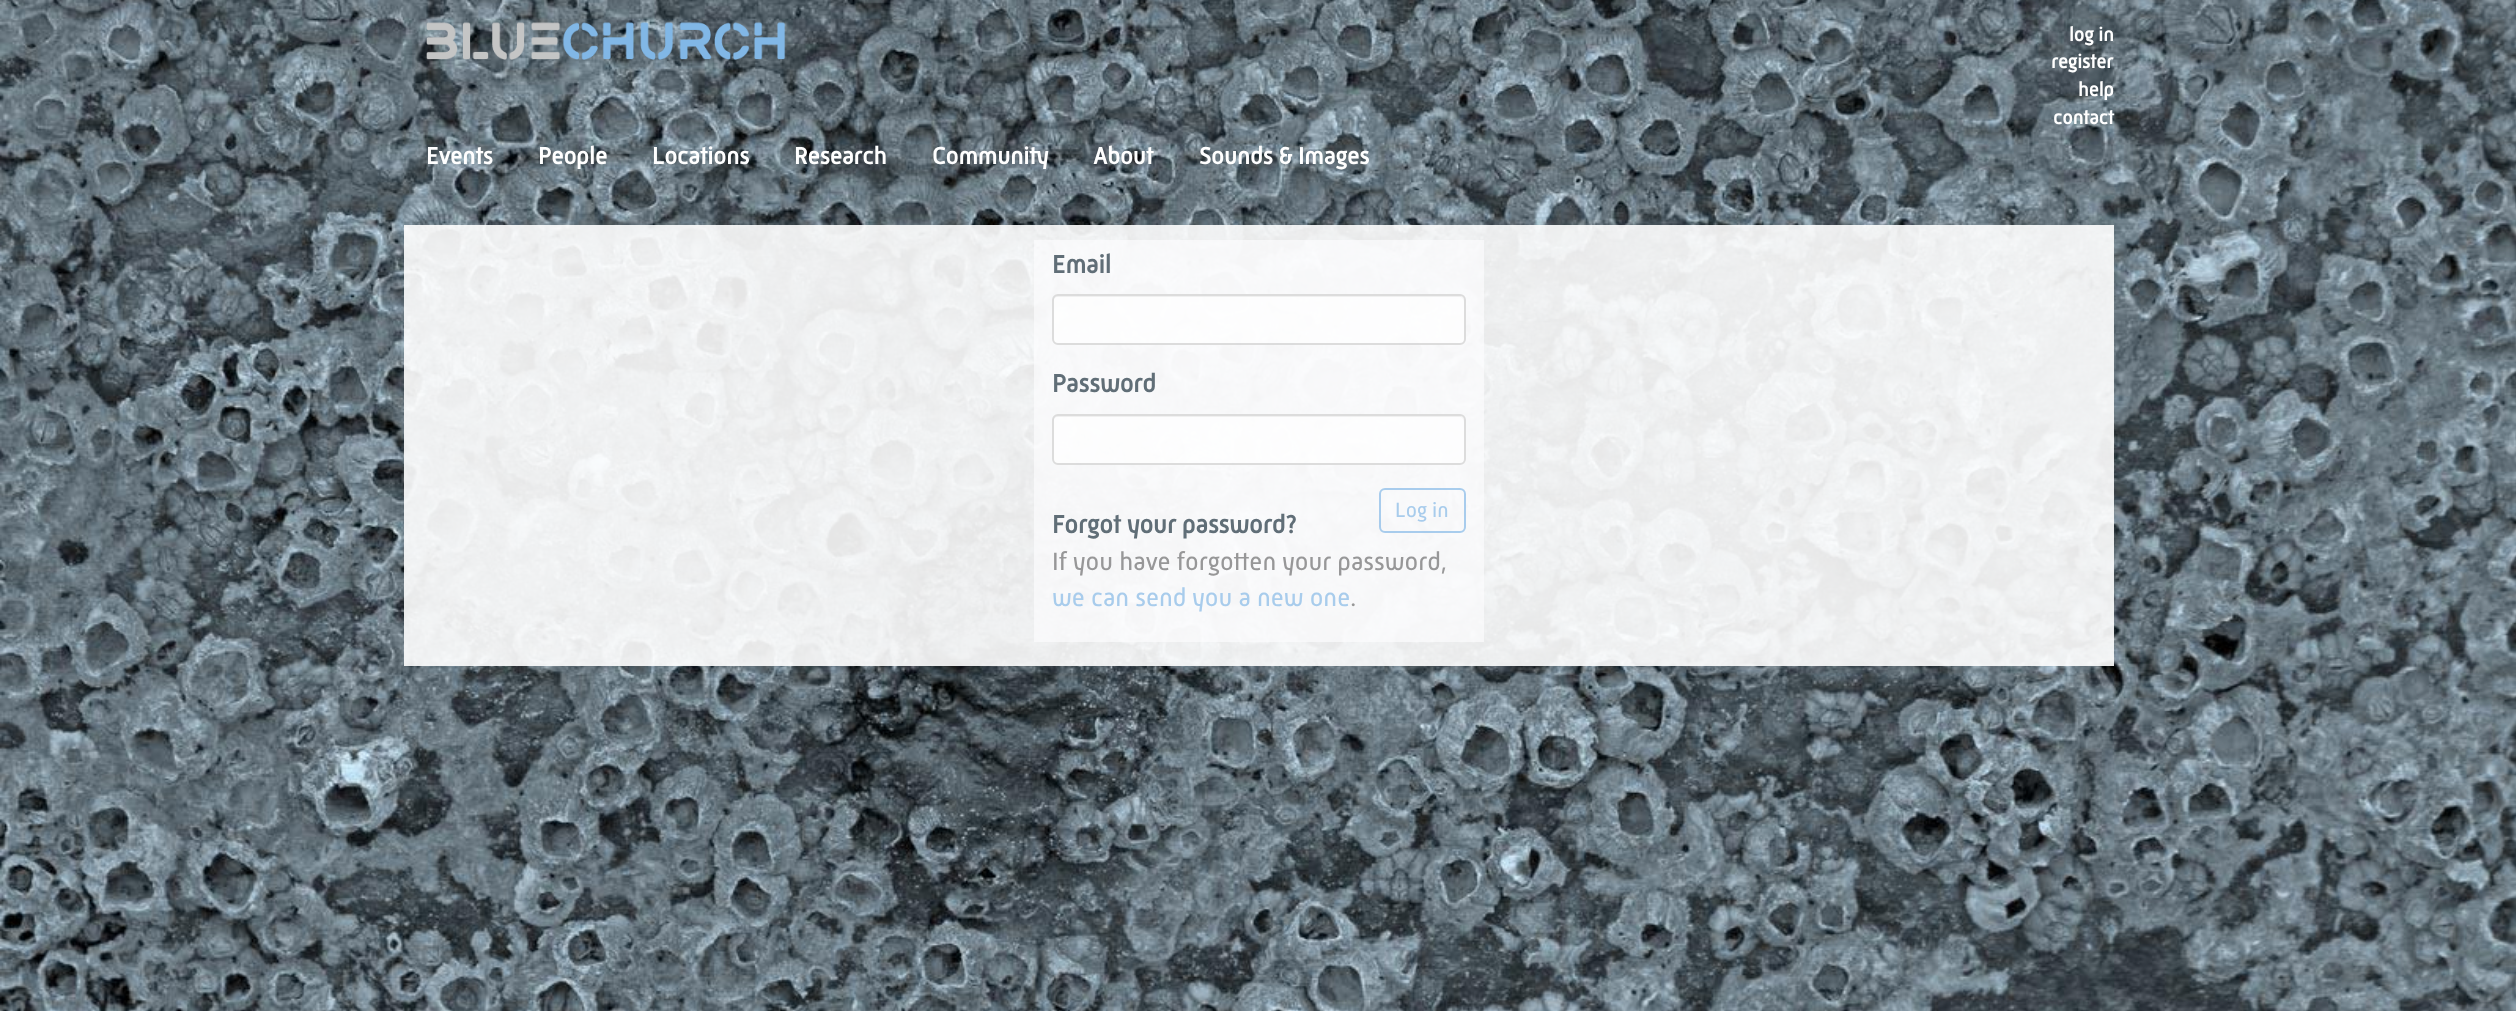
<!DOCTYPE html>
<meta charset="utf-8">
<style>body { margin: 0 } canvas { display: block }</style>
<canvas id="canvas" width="2516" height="1011"></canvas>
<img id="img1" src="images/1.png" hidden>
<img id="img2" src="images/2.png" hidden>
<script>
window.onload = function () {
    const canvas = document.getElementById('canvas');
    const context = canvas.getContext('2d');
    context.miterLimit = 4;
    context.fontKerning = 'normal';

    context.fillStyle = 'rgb(255, 255, 255)';
    context.fillRect(0, 0, 2516, 1011);
    context.drawImage(document.getElementById('img1'), 0, 0, 2516, 1011);
    context.drawImage(document.getElementById('img2'), 426, 22, 360, 38);
    context.fillStyle = 'rgba(255, 255, 255, 0.9)';
    context.fillRect(404, 225, 1710, 441);
    context.fillStyle = 'rgba(252, 252, 253, 0.68)';
    context.fillRect(1034, 240, 450, 402);
    context.fillStyle = 'rgba(255, 255, 255, 0.68)';
    context.beginPath();
    context.roundRect(1052, 294, 414, 51, 6);
    context.fill();
    context.fillStyle = 'rgb(240, 240, 240)';
    context.beginPath();
    context.moveTo(1058, 297);
    context.lineTo(1460, 297);
    context.bezierCurveTo(1462, 297, 1464, 299, 1464, 302);
    context.lineTo(1464, 301);
    context.bezierCurveTo(1464, 298, 1462, 296, 1459, 296);
    context.lineTo(1058, 296);
    context.bezierCurveTo(1055, 296, 1053, 298, 1053, 301);
    context.lineTo(1053, 302);
    context.bezierCurveTo(1053, 299, 1055, 297, 1058, 297);
    context.closePath();
    context.fill();
    context.beginPath();
    context.roundRect(1053, 295, 412, 49, 5);
    context.strokeStyle = 'rgba(204, 204, 204, 0.68)';
    context.lineWidth = 2;
    context.stroke();
    context.fillStyle = 'rgba(255, 255, 255, 0.68)';
    context.beginPath();
    context.roundRect(1052, 414, 414, 51, 6);
    context.fill();
    context.fillStyle = 'rgb(240, 240, 240)';
    context.beginPath();
    context.moveTo(1058, 417);
    context.lineTo(1460, 417);
    context.bezierCurveTo(1462, 417, 1464, 419, 1464, 422);
    context.lineTo(1464, 421);
    context.bezierCurveTo(1464, 418, 1462, 416, 1459, 416);
    context.lineTo(1058, 416);
    context.bezierCurveTo(1055, 416, 1053, 418, 1053, 421);
    context.lineTo(1053, 422);
    context.bezierCurveTo(1053, 419, 1055, 417, 1058, 417);
    context.closePath();
    context.fill();
    context.beginPath();
    context.roundRect(1053, 415, 412, 49, 5);
    context.stroke();
    context.beginPath();
    context.roundRect(1380, 489, 85, 43, 5);
    context.strokeStyle = 'rgba(129, 183, 230, 0.68)';
    context.stroke();
    context.font = 'bold 19.5px "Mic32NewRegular"';
    context.fillStyle = 'rgb(255, 255, 255)';
    context.fillText('log in', 2069, 41);
    context.fillText('register', 2051, 68);
    context.fillText('help', 2078, 96);
    context.fillText('contact', 2053, 124);
    context.font = 'bold 24px "Mic32NewRegular"';
    context.fillText('Events', 426, 164);
    context.fillText('People', 538, 164);
    context.fillText('Locations', 652, 164);
    context.fillText('Research', 794, 164);
    context.fillText('Community', 932, 164);
    context.fillText('About', 1093, 164);
    context.fillText('Sounds & Images', 1199, 164);
    context.font = 'bold 25.5px "Mic32NewRegular"';
    context.fillStyle = 'rgb(96, 110, 119)';
    context.fillText('Email', 1052, 273);
    context.fillText('Password', 1052, 392);
    context.font = '21px "Mic32NewRegular"';
    context.fillStyle = 'rgb(168, 204, 236)';
    context.fillText('Log in', 1395, 517);
    context.font = 'bold 25.5px "Mic32NewRegular"';
    context.fillStyle = 'rgb(96, 110, 119)';
    context.fillText('Forgot your password?', 1052, 533);
    context.font = '25.5px "Mic32NewRegular"';
    context.fillStyle = 'rgb(151, 151, 152)';
    context.fillText('If you have forgotten your password,', 1052, 570);
    context.fillStyle = 'rgb(168, 204, 236)';
    context.fillText('we can send you a new one', 1052, 606);
    context.fillStyle = 'rgb(151, 151, 152)';
    context.fillText('.', 1350, 606);
};
</script>
